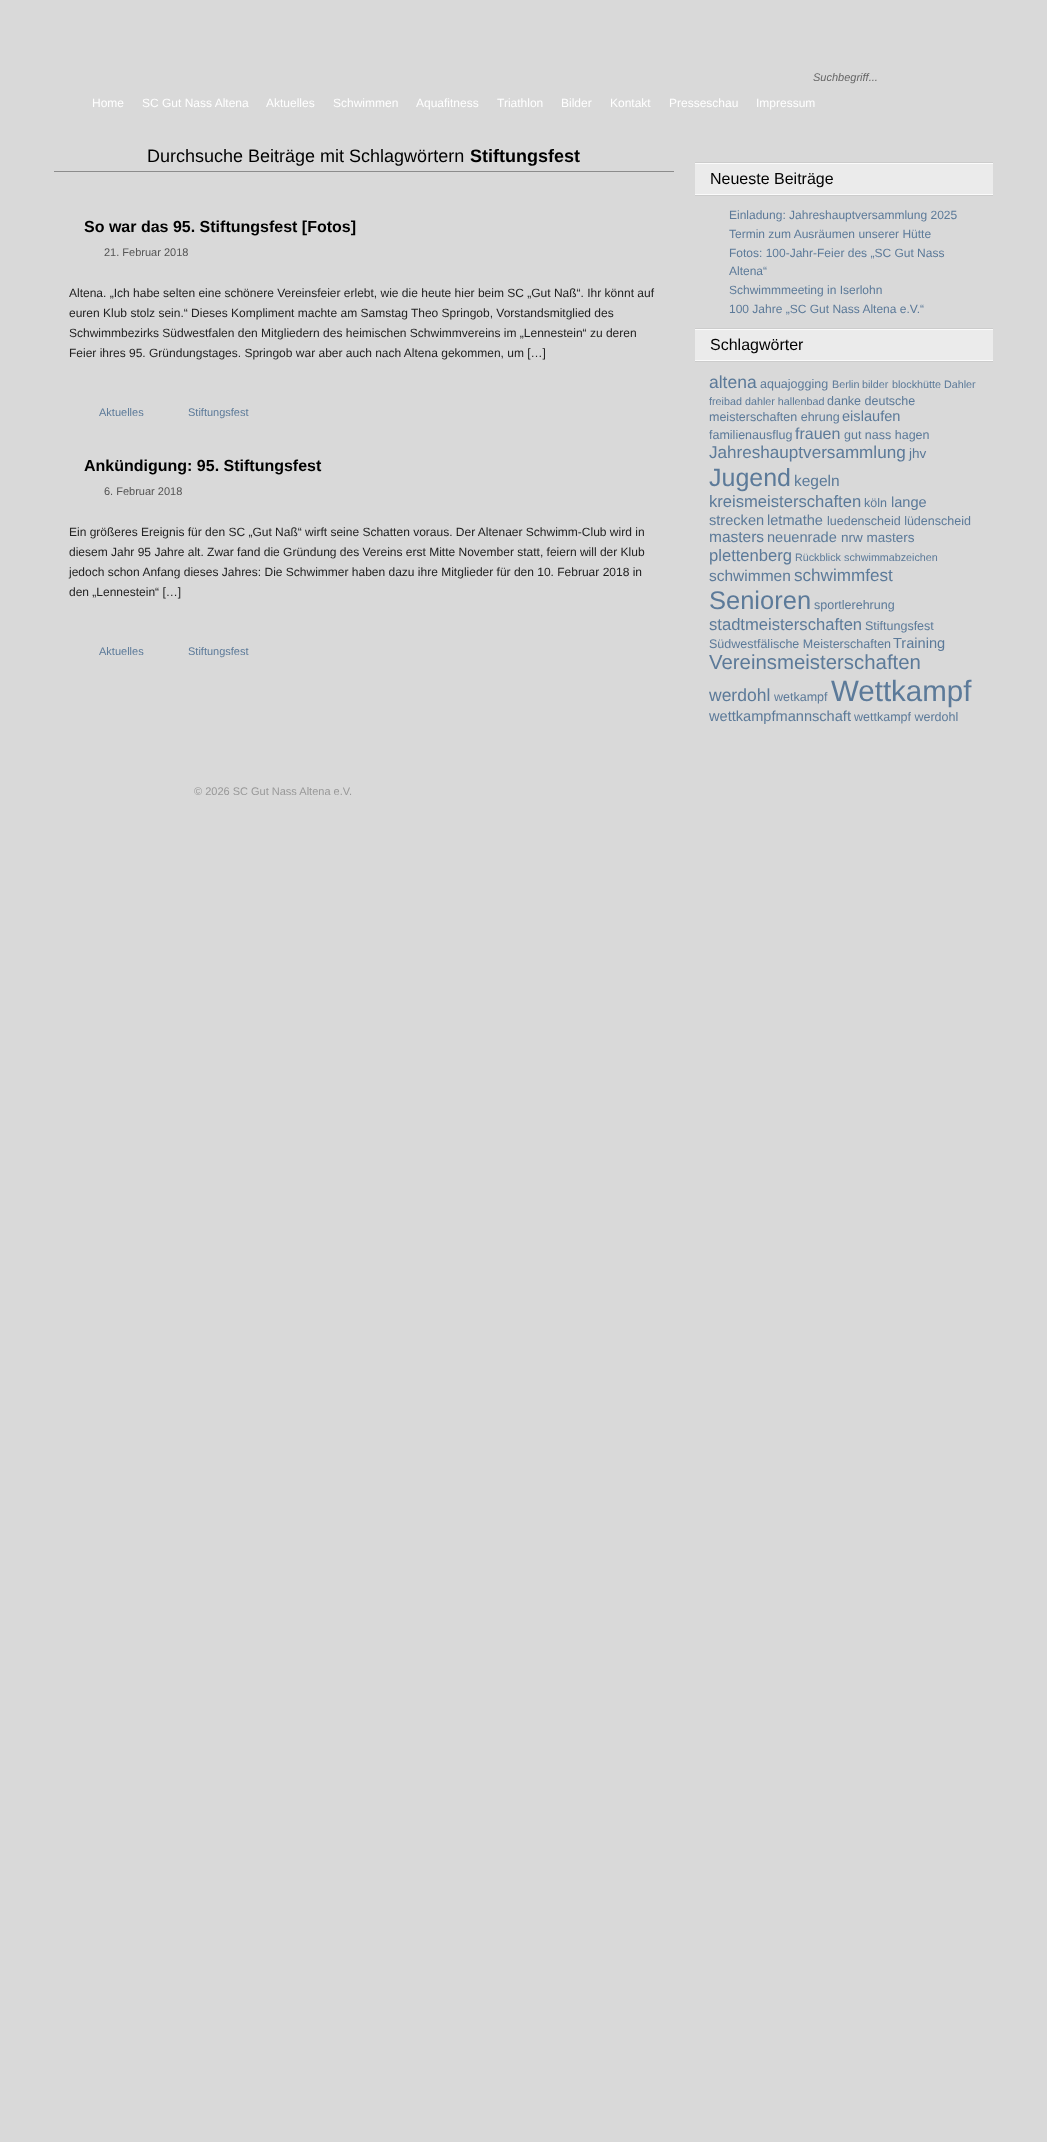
<!DOCTYPE html>
<meta charset="utf-8">
<style>body { margin: 0 } canvas { display: block }</style>
<canvas id="canvas" width="1047" height="2142"></canvas>
<script>
window.onload = function () {
    const canvas = document.getElementById('canvas');
    const context = canvas.getContext('2d');
    context.miterLimit = 4;
    context.fontKerning = 'normal';

    context.fillStyle = 'rgb(217, 217, 217)';
    context.fillRect(0, 0, 1047, 2142);
    context.fillStyle = 'rgb(140, 140, 140)';
    context.fillRect(54, 171, 620, 1);
    context.fillStyle = 'rgb(251, 251, 251)';
    context.fillRect(695, 163, 298, 32);
    context.fillStyle = 'rgb(204, 204, 204)';
    context.fillRect(695, 162, 298, 1);
    context.fillRect(695, 195, 298, 1);
    context.fillStyle = 'rgb(235, 235, 235)';
    context.fillRect(695, 164, 298, 30);
    context.fillStyle = 'rgb(251, 251, 251)';
    context.fillRect(695, 329, 298, 32);
    context.fillStyle = 'rgb(204, 204, 204)';
    context.fillRect(695, 328, 298, 1);
    context.fillRect(695, 361, 298, 1);
    context.fillStyle = 'rgb(235, 235, 235)';
    context.fillRect(695, 330, 298, 30);
    context.font = 'italic 11px Liberation Sans';
    context.fillStyle = 'rgb(102, 102, 102)';
    context.fillText('Suchbegriff...', 813, 81);
    context.font = '12px Liberation Sans';
    context.fillStyle = 'rgb(255, 255, 255)';
    context.fillText('Home', 92, 107);
    context.fillText('SC Gut Nass Altena', 142, 107);
    context.fillText('Aktuelles', 266, 107);
    context.fillText('Schwimmen', 333, 107);
    context.fillText('Aquafitness', 416, 107);
    context.fillText('Triathlon', 497, 107);
    context.fillText('Bilder', 561, 107);
    context.fillText('Kontakt', 610, 107);
    context.fillText('Presseschau', 669, 107);
    context.fillText('Impressum', 756, 107);
    context.font = '18px Liberation Sans';
    context.fillStyle = 'rgb(0, 0, 0)';
    context.fillText('Durchsuche Beiträge mit Schlagwörtern', 147, 162);
    context.font = 'bold 18px Liberation Sans';
    context.fillText('Stiftungsfest', 470, 162);
    context.font = 'bold 16px Liberation Sans';
    context.fillText('So war das 95. Stiftungsfest [Fotos]', 84, 232);
    context.font = '11px Liberation Sans';
    context.fillStyle = 'rgb(85, 85, 85)';
    context.fillText('21. Februar 2018', 104, 256);
    context.font = '12px Liberation Sans';
    context.fillStyle = 'rgb(34, 34, 34)';
    context.fillText('Altena. „Ich habe selten eine schönere Vereinsfeier erlebt, wie die heute hier beim SC „Gut Naß“. Ihr könnt auf', 69, 297);
    context.fillText('euren Klub stolz sein.“ Dieses Kompliment machte am Samstag Theo Springob, Vorstandsmitglied des', 69, 317);
    context.fillText('Schwimmbezirks Südwestfalen den Mitgliedern des heimischen Schwimmvereins im „Lennestein“ zu deren', 69, 337);
    context.fillText('Feier ihres 95. Gründungstages. Springob war aber auch nach Altena gekommen, um […]', 69, 357);
    context.font = '11px Liberation Sans';
    context.fillStyle = 'rgb(92, 122, 153)';
    context.fillText('Aktuelles', 99, 416);
    context.fillText('Stiftungsfest', 188, 416);
    context.font = 'bold 16px Liberation Sans';
    context.fillStyle = 'rgb(0, 0, 0)';
    context.fillText('Ankündigung: 95. Stiftungsfest', 84, 471);
    context.font = '11px Liberation Sans';
    context.fillStyle = 'rgb(85, 85, 85)';
    context.fillText('6. Februar 2018', 104, 495);
    context.font = '12px Liberation Sans';
    context.fillStyle = 'rgb(34, 34, 34)';
    context.fillText('Ein größeres Ereignis für den SC „Gut Naß“ wirft seine Schatten voraus. Der Altenaer Schwimm-Club wird in', 69, 536);
    context.fillText('diesem Jahr 95 Jahre alt. Zwar fand die Gründung des Vereins erst Mitte November statt, feiern will der Klub', 69, 556);
    context.fillText('jedoch schon Anfang dieses Jahres: Die Schwimmer haben dazu ihre Mitglieder für den 10. Februar 2018 in', 69, 576);
    context.fillText('den „Lennestein“ […]', 69, 596);
    context.font = '11px Liberation Sans';
    context.fillStyle = 'rgb(92, 122, 153)';
    context.fillText('Aktuelles', 99, 655);
    context.fillText('Stiftungsfest', 188, 655);
    context.font = '16px Liberation Sans';
    context.fillStyle = 'rgb(0, 0, 0)';
    context.fillText('Neueste Beiträge', 710, 184);
    context.font = '12px Liberation Sans';
    context.fillStyle = 'rgb(92, 122, 153)';
    context.fillText('Einladung: Jahreshauptversammlung 2025', 729, 219);
    context.fillText('Termin zum Ausräumen unserer Hütte', 729, 238);
    context.fillText('Fotos: 100-Jahr-Feier des „SC Gut Nass', 729, 257);
    context.fillText('Altena“', 729, 275);
    context.fillText('Schwimmmeeting in Iserlohn', 729, 294);
    context.fillText('100 Jahre „SC Gut Nass Altena e.V.“', 729, 313);
    context.font = '16px Liberation Sans';
    context.fillStyle = 'rgb(0, 0, 0)';
    context.fillText('Schlagwörter', 710, 350);
    context.font = '17.5px Liberation Sans';
    context.fillStyle = 'rgb(92, 122, 153)';
    context.fillText('altena', 709, 388);
    context.font = '12.5px Liberation Sans';
    context.fillText('aquajogging', 760, 388);
    context.font = '10.75px Liberation Sans';
    context.fillText('Berlin', 832, 388);
    context.fillText('bilder', 862, 388);
    context.fillText('blockhütte', 892, 388);
    context.fillText('Dahler', 944, 388);
    context.fillText('freibad', 709, 405);
    context.fillText('dahler hallenbad', 745, 405);
    context.font = '12.5px Liberation Sans';
    context.fillText('danke deutsche', 827, 405);
    context.fillText('meisterschaften ehrung', 709, 421);
    context.font = '14.6px Liberation Sans';
    context.fillText('eislaufen', 842, 421);
    context.font = '12.5px Liberation Sans';
    context.fillText('familienausflug', 709, 439);
    context.font = '16px Liberation Sans';
    context.fillText('frauen', 795, 439);
    context.font = '12.5px Liberation Sans';
    context.fillText('gut nass hagen', 844, 439);
    context.font = '17.1px Liberation Sans';
    context.fillText('Jahreshauptversammlung', 709, 458);
    context.font = '13.5px Liberation Sans';
    context.fillText('jhv', 909, 458);
    context.font = '25px Liberation Sans';
    context.fillText('Jugend', 709, 486);
    context.font = '15.5px Liberation Sans';
    context.fillText('kegeln', 794, 486);
    context.font = '16.6px Liberation Sans';
    context.fillText('kreismeisterschaften', 709, 507);
    context.font = '12.5px Liberation Sans';
    context.fillText('köln', 864, 507);
    context.font = '14.6px Liberation Sans';
    context.fillText('lange', 891, 507);
    context.fillText('strecken', 709, 525);
    context.fillText('letmathe', 767, 525);
    context.font = '12.5px Liberation Sans';
    context.fillText('luedenscheid lüdenscheid', 827, 525);
    context.font = '15.5px Liberation Sans';
    context.fillText('masters', 709, 542);
    context.font = '14.6px Liberation Sans';
    context.fillText('neuenrade', 767, 542);
    context.font = '13.5px Liberation Sans';
    context.fillText('nrw masters', 841, 542);
    context.font = '16.6px Liberation Sans';
    context.fillText('plettenberg', 709, 561);
    context.font = '10.75px Liberation Sans';
    context.fillText('Rückblick', 795, 561);
    context.fillText('schwimmabzeichen', 844, 561);
    context.font = '15.5px Liberation Sans';
    context.fillText('schwimmen', 709, 581);
    context.font = '17.1px Liberation Sans';
    context.fillText('schwimmfest', 794, 581);
    context.font = '25.5px Liberation Sans';
    context.fillText('Senioren', 709, 609);
    context.font = '12.5px Liberation Sans';
    context.fillText('sportlerehrung', 814, 609);
    context.font = '16.6px Liberation Sans';
    context.fillText('stadtmeisterschaften', 709, 630);
    context.font = '12.5px Liberation Sans';
    context.fillText('Stiftungsfest', 865, 630);
    context.fillText('Südwestfälische Meisterschaften', 709, 648);
    context.font = '14.6px Liberation Sans';
    context.fillText('Training', 893, 648);
    context.font = '20.4px Liberation Sans';
    context.fillText('Vereinsmeisterschaften', 709, 669);
    context.font = '17.5px Liberation Sans';
    context.fillText('werdohl', 709, 701);
    context.font = '12.5px Liberation Sans';
    context.fillText('wetkampf', 774, 701);
    context.font = '29.5px Liberation Sans';
    context.fillText('Wettkampf', 831, 701);
    context.font = '14.6px Liberation Sans';
    context.fillText('wettkampfmannschaft', 709, 721);
    context.font = '12.5px Liberation Sans';
    context.fillText('wettkampf werdohl', 854, 721);
    context.font = '11px Liberation Sans';
    context.fillStyle = 'rgb(153, 153, 153)';
    context.fillText('© 2026 SC Gut Nass Altena e.V.', 194, 795);
};
</script>
